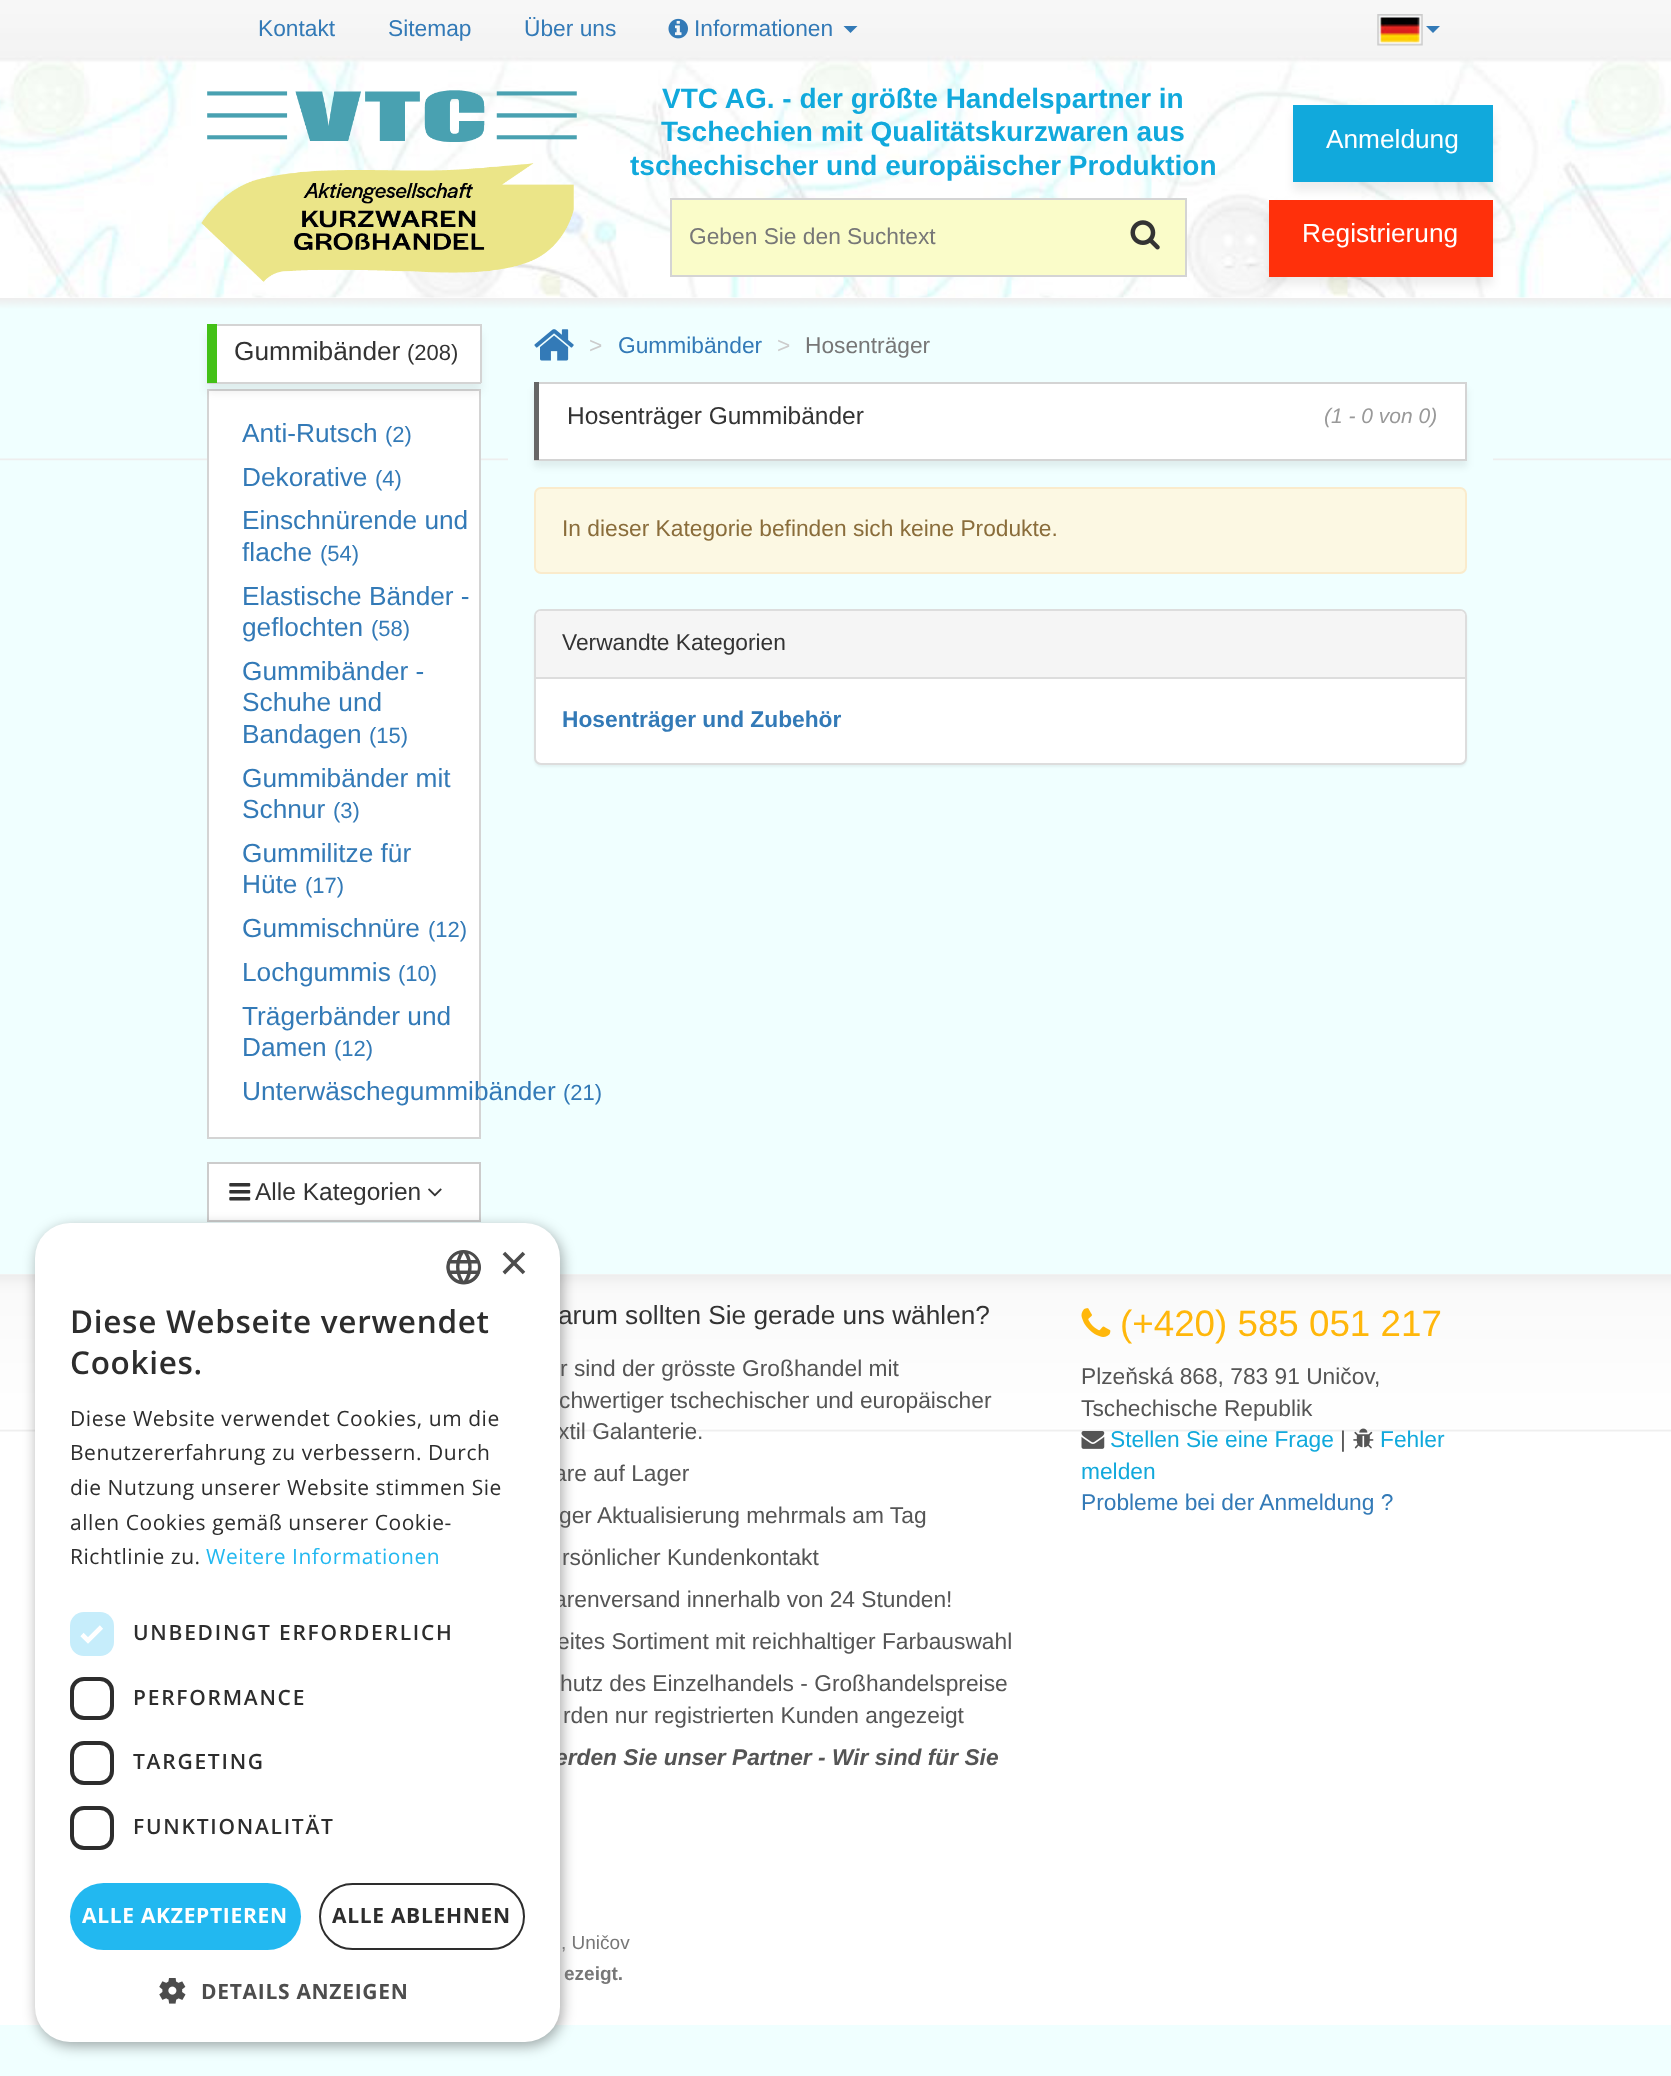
<!DOCTYPE html>
<meta charset="utf-8">
<style>body { margin: 0 } canvas { display: block }</style>
<canvas id="canvas" width="1671" height="2076"></canvas>
<img id="img1" src="images/1.png" hidden>
<img id="img2" src="images/2.png" hidden>
<img id="img3" src="images/3.png" hidden>
<img id="img4" src="images/4.png" hidden>
<img id="img5" src="images/6.png" hidden>
<img id="img6" src="images/5.png" hidden>
<img id="img7" src="images/7.png" hidden>
<img id="img8" src="images/8.png" hidden>
<img id="img9" src="images/9.png" hidden>
<img id="img10" src="images/12.png" hidden>
<img id="img11" src="images/13.png" hidden>
<img id="img12" src="images/14.png" hidden>
<img id="img13" src="images/15.png" hidden>
<img id="img14" src="images/11.png" hidden>
<img id="img15" src="images/10.png" hidden>
<script>
window.onload = function () {
    const canvas = document.getElementById('canvas');
    const context = canvas.getContext('2d');
    context.miterLimit = 4;
    context.fontKerning = 'normal';

    context.fillStyle = 'rgb(240, 255, 255)';
    context.fillRect(0, 0, 1671, 2076);
    context.fillStyle = 'rgb(255, 255, 255)';
    context.fillRect(0, 297, 1671, 1);
    context.drawImage(document.getElementById('img1'), 0, 0, 1671, 298);
    context.drawImage(document.getElementById('img2'), 668, 18, 20, 21);
    context.fillStyle = 'rgb(51, 122, 183)';
    context.beginPath();
    context.moveTo(843.5, 26);
    context.lineTo(857.5, 26);
    context.lineTo(850.5, 33);
    context.closePath();
    context.fill();
    context.drawImage(document.getElementById('img3'), 1377, 14, 46, 32);
    context.beginPath();
    context.moveTo(1426, 26);
    context.lineTo(1440, 26);
    context.lineTo(1433, 33);
    context.closePath();
    context.fill();
    context.drawImage(document.getElementById('img4'), 201, 90, 376, 192);
    context.fillStyle = 'rgba(0, 0, 0, 0.07)';
    context.filter = 'blur(4.5px)';
    context.beginPath();
    context.rect(1293, 114, 200, 77);
    context.fill();
    context.filter = 'none';
    context.fillStyle = 'rgb(17, 169, 220)';
    context.fillRect(1293, 105, 200, 77);
    context.drawImage(document.getElementById('img5'), 0, 298, 1671, 163);
    context.fillStyle = 'rgba(0, 0, 0, 0.07)';
    context.filter = 'blur(4.5px)';
    context.beginPath();
    context.rect(1269, 208, 224, 77);
    context.fill();
    context.filter = 'none';
    context.fillStyle = 'rgb(255, 48, 11)';
    context.fillRect(1269, 200, 224, 77);
    context.fillStyle = 'rgb(250, 252, 201)';
    context.fillRect(672, 200, 513, 75);
    context.fillStyle = 'rgb(212, 212, 212)';
    context.fillRect(670, 198, 517, 2);
    context.fillRect(1185, 198, 2, 79);
    context.fillRect(670, 275, 517, 2);
    context.drawImage(document.getElementById('img6'), 1130, 220, 30, 30);
    context.fillRect(670, 198, 2, 79);
    context.fillStyle = 'rgb(255, 255, 255)';
    context.beginPath();
    context.rect(208, 390, 272, 748);
    context.fill();
    context.strokeStyle = 'rgb(212, 212, 212)';
    context.lineWidth = 2;
    context.stroke();
    context.fillStyle = 'rgba(0, 0, 0, 0.07)';
    context.filter = 'blur(4.5px)';
    context.beginPath();
    context.rect(207, 333, 274, 59);
    context.fill();
    context.filter = 'none';
    context.fillStyle = 'rgb(255, 255, 255)';
    context.fillRect(217, 326, 263, 56);
    context.fillStyle = 'rgb(212, 212, 212)';
    context.fillRect(217, 324, 264, 2);
    context.fillRect(480, 324, 2, 59);
    context.fillRect(207, 382, 274, 2);
    context.fillStyle = 'rgb(67, 193, 23)';
    context.fillRect(207, 324, 10, 59);
    context.fillStyle = 'rgb(255, 255, 255)';
    context.beginPath();
    context.rect(208, 1163, 272, 58);
    context.fill();
    context.strokeStyle = 'rgb(204, 204, 204)';
    context.stroke();
    context.drawImage(document.getElementById('img7'), 229, 1183, 22, 18);
    context.drawImage(document.getElementById('img8'), 428, 1188, 14, 9);
    context.fillStyle = 'rgb(240, 255, 255)';
    context.fillRect(508, 458, 985, 3);
    context.drawImage(document.getElementById('img9'), 534, 329, 40, 32);
    context.fillStyle = 'rgba(0, 0, 0, 0.07)';
    context.filter = 'blur(3.5px)';
    context.beginPath();
    context.rect(534, 389, 933, 78);
    context.fill();
    context.filter = 'none';
    context.fillStyle = 'rgb(255, 255, 255)';
    context.fillRect(539, 384, 926, 75);
    context.fillStyle = 'rgb(212, 212, 212)';
    context.fillRect(534, 382, 933, 2);
    context.fillRect(1465, 382, 2, 78);
    context.fillRect(534, 459, 933, 2);
    context.fillStyle = 'rgb(102, 102, 102)';
    context.fillRect(534, 382, 5, 78);
    context.fillStyle = 'rgb(252, 248, 227)';
    context.beginPath();
    context.roundRect(535, 488, 931, 85, 6);
    context.fill();
    context.strokeStyle = 'rgb(250, 235, 204)';
    context.stroke();
    context.fillStyle = 'rgba(0, 0, 0, 0.05)';
    context.filter = 'blur(1px)';
    context.beginPath();
    context.roundRect(534, 611, 933, 156, 7);
    context.fill();
    context.filter = 'none';
    context.fillStyle = 'rgb(255, 255, 255)';
    context.beginPath();
    context.roundRect(535, 610, 931, 154, 6);
    context.fill();
    context.strokeStyle = 'rgb(221, 221, 221)';
    context.stroke();
    context.fillStyle = 'rgb(245, 245, 245)';
    context.beginPath();
    context.roundRect(536, 611, 929, 68, [5, 5, 0, 0]);
    context.fill();
    context.fillStyle = 'rgb(221, 221, 221)';
    context.fillRect(536, 677, 929, 2);
    context.fillStyle = 'rgb(255, 255, 255)';
    context.fillRect(0, 1431, 1671, 594);
    context.drawImage(document.getElementById('img10'), 0, 1274, 1671, 158);
    context.fillStyle = 'rgba(0, 0, 0, 0.35)';
    context.filter = 'blur(7px)';
    context.beginPath();
    context.roundRect(37, 1227, 525, 819, 35);
    context.fill();
    context.filter = 'none';
    context.drawImage(document.getElementById('img11'), 1081, 1308, 30, 29);
    context.drawImage(document.getElementById('img12'), 1081, 1431, 24, 18);
    context.drawImage(document.getElementById('img13'), 1353, 1428, 21, 21);
    context.font = '22.75px Liberation Sans';
    context.fillStyle = 'rgb(51, 122, 183)';
    context.fillText('Kontakt', 258, 36);
    context.fillText('Sitemap', 388, 36);
    context.fillText('Über uns', 524, 36);
    context.fillText('Informationen', 694, 36);
    context.font = 'bold 28px Liberation Sans';
    context.fillStyle = 'rgb(17, 169, 220)';
    context.fillText('VTC AG. - der größte Handelspartner in', 662, 108);
    context.fillText('Tschechien mit Qualitätskurzwaren aus', 661, 141);
    context.fillText('tschechischer und europäischer Produktion', 630, 175);
    context.font = '26.25px Liberation Sans';
    context.fillStyle = 'rgb(255, 255, 255)';
    context.fillText('Anmeldung', 1326, 148);
    context.fillText('Registrierung', 1302, 242);
    context.save();
    context.beginPath();
    context.rect(690, 224, 400, 26);
    context.clip();
    context.font = '22.75px Liberation Sans';
    context.fillStyle = 'rgb(119, 119, 119)';
    context.fillText('Geben Sie den Suchtext', 689, 244);
    context.restore();
    context.fillStyle = 'rgb(51, 51, 51)';
    context.fillText('Gummibänder', 234, 360);
    context.font = '22px Liberation Sans';
    context.fillText('(208)', 407, 360);
    context.font = '26.25px Liberation Sans';
    context.fillStyle = 'rgb(51, 122, 183)';
    context.fillText('Anti-Rutsch', 242, 442);
    context.font = '22px Liberation Sans';
    context.fillText('(2)', 385, 442);
    context.font = '26.25px Liberation Sans';
    context.fillText('Dekorative', 242, 486);
    context.font = '22px Liberation Sans';
    context.fillText('(4)', 375, 486);
    context.font = '26.25px Liberation Sans';
    context.fillText('Einschnürende und', 242, 529);
    context.fillText('flache', 242, 561);
    context.font = '22px Liberation Sans';
    context.fillText('(54)', 320, 561);
    context.font = '26.25px Liberation Sans';
    context.fillText('Elastische Bänder -', 242, 605);
    context.fillText('geflochten', 242, 636);
    context.font = '22px Liberation Sans';
    context.fillText('(58)', 371, 636);
    context.font = '26.25px Liberation Sans';
    context.fillText('Gummibänder -', 242, 680);
    context.fillText('Schuhe und', 242, 711);
    context.fillText('Bandagen', 242, 743);
    context.font = '22px Liberation Sans';
    context.fillText('(15)', 369, 743);
    context.font = '26.25px Liberation Sans';
    context.fillText('Gummibänder mit', 242, 787);
    context.fillText('Schnur', 242, 818);
    context.font = '22px Liberation Sans';
    context.fillText('(3)', 333, 818);
    context.font = '26.25px Liberation Sans';
    context.fillText('Gummilitze für', 242, 862);
    context.fillText('Hüte', 242, 893);
    context.font = '22px Liberation Sans';
    context.fillText('(17)', 305, 893);
    context.font = '26.25px Liberation Sans';
    context.fillText('Gummischnüre', 242, 937);
    context.font = '22px Liberation Sans';
    context.fillText('(12)', 428, 937);
    context.font = '26.25px Liberation Sans';
    context.fillText('Lochgummis', 242, 981);
    context.font = '22px Liberation Sans';
    context.fillText('(10)', 398, 981);
    context.font = '26.25px Liberation Sans';
    context.fillText('Trägerbänder und', 242, 1025);
    context.fillText('Damen', 242, 1056);
    context.font = '22px Liberation Sans';
    context.fillText('(12)', 334, 1056);
    context.font = '26.25px Liberation Sans';
    context.fillText('Unterwäschegummibänder', 242, 1100);
    context.font = '22px Liberation Sans';
    context.fillText('(21)', 563, 1100);
    context.font = '24.5px Liberation Sans';
    context.fillStyle = 'rgb(51, 51, 51)';
    context.fillText('Alle Kategorien', 255, 1200);
    context.font = '22.75px Liberation Sans';
    context.fillStyle = 'rgb(204, 204, 204)';
    context.fillText('>', 589, 353);
    context.fillStyle = 'rgb(51, 122, 183)';
    context.fillText('Gummibänder', 618, 353);
    context.fillStyle = 'rgb(204, 204, 204)';
    context.fillText('>', 777, 353);
    context.fillStyle = 'rgb(119, 119, 119)';
    context.fillText('Hosenträger', 805, 353);
    context.font = '24.5px Liberation Sans';
    context.fillStyle = 'rgb(51, 51, 51)';
    context.fillText('Hosenträger Gummibänder', 567, 424);
    context.font = 'italic 21px Liberation Sans';
    context.fillStyle = 'rgb(153, 153, 153)';
    context.fillText('(1 - 0 von 0)', 1324, 423);
    context.font = '22.75px Liberation Sans';
    context.fillStyle = 'rgb(138, 109, 59)';
    context.fillText('In dieser Kategorie befinden sich keine Produkte.', 562, 536);
    context.fillStyle = 'rgb(51, 51, 51)';
    context.fillText('Verwandte Kategorien', 562, 650);
    context.font = 'bold 22.75px Liberation Sans';
    context.fillStyle = 'rgb(51, 122, 183)';
    context.fillText('Hosenträger und Zubehör', 562, 727);
    context.font = '26.25px Liberation Sans';
    context.fillStyle = 'rgb(51, 51, 51)';
    context.fillText('arum sollten Sie gerade uns wählen?', 558, 1324);
    context.font = '22.75px Liberation Sans';
    context.fillStyle = 'rgb(85, 85, 85)';
    context.fillText('r sind der grösste Großhandel mit', 560, 1376);
    context.fillText('chwertiger tschechischer und europäischer', 559, 1408);
    context.fillText('xtil Galanterie.', 558, 1439);
    context.fillText('are auf Lager', 554, 1481);
    context.fillText('ger Aktualisierung mehrmals am Tag', 559, 1523);
    context.fillText('rsönlicher Kundenkontakt', 562, 1565);
    context.fillText('arenversand innerhalb von 24 Stunden!', 554, 1607);
    context.fillText('eites Sortiment mit reichhaltiger Farbauswahl', 557, 1649);
    context.fillText('hutz des Einzelhandels - Großhandelspreise', 560, 1691);
    context.fillText('rden nur registrierten Kunden angezeigt', 563, 1723);
    context.font = 'italic bold 22.75px Liberation Sans';
    context.fillText('erden Sie unser Partner - Wir sind für Sie', 555, 1765);
    context.fillStyle = 'rgb(255, 255, 255)';
    context.beginPath();
    context.roundRect(35, 1223, 525, 819, 35);
    context.fill();
    context.font = '51px Liberation Sans';
    context.fillStyle = 'rgb(77, 77, 77)';
    context.fillText('×', 499, 1280);
    context.drawImage(document.getElementById('img14'), 159, 1978, 27, 26);
    context.letterSpacing = '0.7px';
    context.font = 'bold 21px Open Sans';
    context.fillText('DETAILS ANZEIGEN', 201, 1999);
    context.beginPath();
    context.roundRect(72, 1808, 40, 40, 12);
    context.strokeStyle = 'rgb(45, 45, 45)';
    context.lineWidth = 4;
    context.stroke();
    context.beginPath();
    context.roundRect(72, 1743, 40, 40, 12);
    context.stroke();
    context.beginPath();
    context.roundRect(72, 1679, 40, 39, 12);
    context.stroke();
    context.fillStyle = 'rgb(198, 237, 251)';
    context.beginPath();
    context.roundRect(70, 1612, 44, 44, 14);
    context.fill();
    context.beginPath();
    context.moveTo(82, 1634.5);
    context.lineTo(88, 1640.5);
    context.lineTo(101.5, 1627);
    context.strokeStyle = 'rgb(255, 255, 255)';
    context.lineWidth = 4.6;
    context.stroke();
    context.drawImage(document.getElementById('img15'), 446, 1250, 35, 35);
    context.beginPath();
    context.roundRect(320, 1884, 204, 65, 32.5);
    context.strokeStyle = 'rgb(45, 45, 45)';
    context.lineWidth = 2;
    context.stroke();
    context.fillStyle = 'rgb(45, 45, 45)';
    context.fillText('ALLE ABLEHNEN', 332, 1923);
    context.fillStyle = 'rgb(34, 184, 240)';
    context.beginPath();
    context.roundRect(70, 1883, 231, 67, 33.5);
    context.fill();
    context.fillStyle = 'rgb(255, 255, 255)';
    context.fillText('ALLE AKZEPTIEREN', 82, 1923);
    context.letterSpacing = '1.75px';
    context.font = '600 21px Open Sans';
    context.fillStyle = 'rgb(45, 45, 45)';
    context.fillText('FUNKTIONALITÄT', 133, 1834);
    context.fillText('TARGETING', 133, 1769);
    context.fillText('PERFORMANCE', 133, 1705);
    context.fillText('UNBEDINGT ERFORDERLICH', 133, 1640);
    context.letterSpacing = '0.55px';
    context.font = '21px Open Sans';
    context.fillStyle = 'rgb(34, 184, 240)';
    context.fillText('Weitere Informationen', 206, 1564);
    context.fillStyle = 'rgb(45, 45, 45)';
    context.fillText('Richtlinie zu.', 70, 1564);
    context.fillText('allen Cookies gemäß unserer Cookie-', 70, 1530);
    context.fillText('die Nutzung unserer Website stimmen Sie', 70, 1495);
    context.fillText('Benutzererfahrung zu verbessern. Durch', 70, 1460);
    context.fillText('Diese Website verwendet Cookies, um die', 70, 1426);
    context.letterSpacing = '0.7px';
    context.font = '600 31.5px Open Sans';
    context.fillText('Cookies.', 70, 1374);
    context.fillText('Diese Webseite verwendet', 70, 1333);
    context.letterSpacing = '0px';
    context.font = '36.75px Liberation Sans';
    context.fillStyle = 'rgb(255, 183, 11)';
    context.fillText('(+420) 585 051 217', 1120, 1336);
    context.font = '22.75px Liberation Sans';
    context.fillStyle = 'rgb(85, 85, 85)';
    context.fillText('Plzeňská 868, 783 91 Uničov,', 1081, 1384);
    context.fillText('Tschechische Republik', 1081, 1416);
    context.fillStyle = 'rgb(17, 169, 220)';
    context.fillText('Stellen Sie eine Frage', 1110, 1447);
    context.fillStyle = 'rgb(85, 85, 85)';
    context.fillText('|', 1340, 1447);
    context.fillStyle = 'rgb(17, 169, 220)';
    context.fillText('Fehler', 1380, 1447);
    context.fillText('melden', 1081, 1479);
    context.fillStyle = 'rgb(51, 122, 183)';
    context.fillText('Probleme bei der Anmeldung ?', 1081, 1510);
    context.font = '19px Liberation Sans';
    context.fillStyle = 'rgb(119, 119, 119)';
    context.fillText(', Uničov', 561, 1949);
    context.font = 'bold 19px Liberation Sans';
    context.fillText('ezeigt.', 564, 1980);
};
</script>
